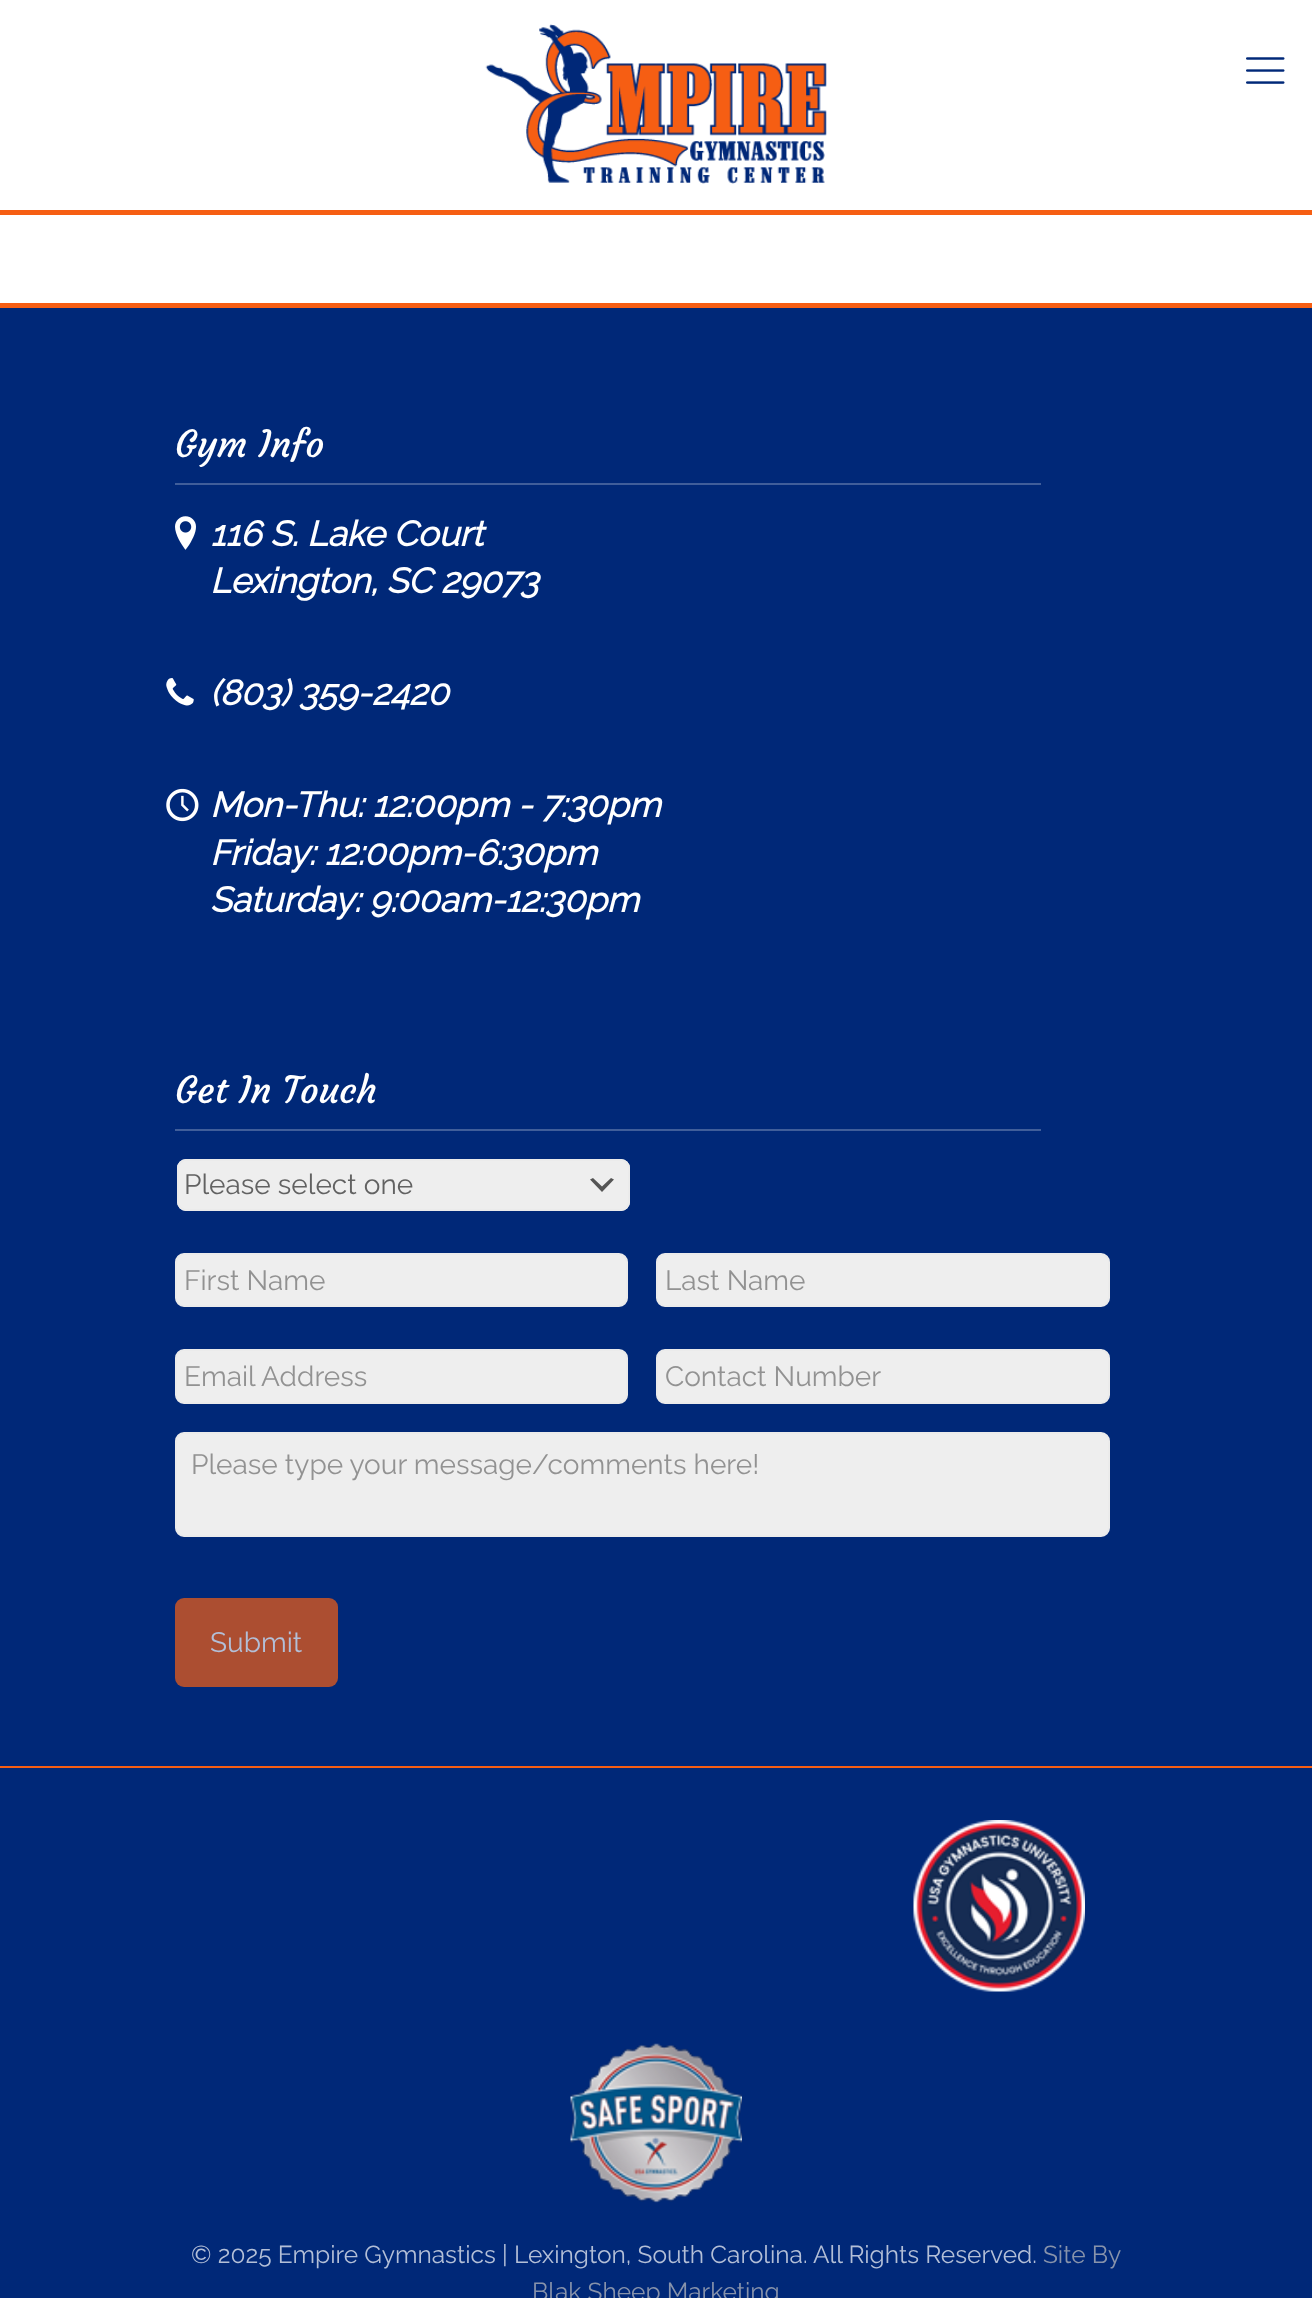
<!DOCTYPE html>
<meta charset="utf-8">
<style>body { margin: 0 } canvas { display: block }</style>
<canvas id="canvas" width="1312" height="2298"></canvas>
<img id="img1" src="images/1.png" hidden>
<img id="img2" src="images/2.png" hidden>
<img id="img3" src="images/3.png" hidden>
<img id="img4" src="images/4.png" hidden>
<img id="img5" src="images/5.png" hidden>
<img id="img6" src="images/6.png" hidden>
<img id="img7" src="images/7.png" hidden>
<script>
window.onload = function () {
    const canvas = document.getElementById('canvas');
    const context = canvas.getContext('2d');
    context.miterLimit = 4;
    context.fontKerning = 'normal';

    context.fillStyle = 'rgb(255, 255, 255)';
    context.fillRect(0, 0, 1312, 2298);
    context.fillStyle = 'rgb(246, 94, 19)';
    context.fillRect(0, 210, 1312, 5);
    context.drawImage(document.getElementById('img1'), 485, 24, 342, 160);
    context.drawImage(document.getElementById('img2'), 1246, 57, 39, 27);
    context.fillStyle = 'rgb(0, 40, 120)';
    context.fillRect(0, 308, 1312, 1990);
    context.fillStyle = 'rgb(246, 94, 19)';
    context.fillRect(0, 303, 1312, 5);
    context.fillStyle = 'rgb(64, 94, 154)';
    context.fillRect(175, 483, 866, 2);
    context.drawImage(document.getElementById('img3'), 175, 516, 21, 34);
    context.drawImage(document.getElementById('img4'), 166, 678, 28, 28);
    context.drawImage(document.getElementById('img5'), 166, 788, 33, 34);
    context.fillRect(175, 1129, 866, 2);
    context.fillStyle = 'rgb(238, 238, 238)';
    context.beginPath();
    context.roundRect(177, 1159, 453, 52, 9);
    context.fill();
    context.fillStyle = 'rgb(85, 85, 85)';
    context.beginPath();
    context.moveTo(593, 1178);
    context.lineTo(602, 1186.5);
    context.lineTo(611, 1178);
    context.lineTo(614, 1179.5);
    context.lineTo(602, 1192);
    context.lineTo(590, 1179.5);
    context.closePath();
    context.fill();
    context.beginPath();
    context.roundRect(178, 1160, 451, 50, 8);
    context.strokeStyle = 'rgb(235, 235, 235)';
    context.lineWidth = 2;
    context.stroke();
    context.fillStyle = 'rgb(238, 238, 238)';
    context.beginPath();
    context.roundRect(176, 1254, 451, 52, 8);
    context.fill();
    context.stroke();
    context.beginPath();
    context.roundRect(657, 1254, 452, 52, 8);
    context.fill();
    context.stroke();
    context.beginPath();
    context.roundRect(176, 1350, 451, 53, 8);
    context.fill();
    context.stroke();
    context.beginPath();
    context.roundRect(657, 1350, 452, 53, 8);
    context.fill();
    context.stroke();
    context.beginPath();
    context.roundRect(176, 1433, 933, 103, 8);
    context.fill();
    context.stroke();
    context.fillStyle = 'rgb(172, 78, 49)';
    context.beginPath();
    context.roundRect(175, 1598, 163, 89, 9);
    context.fill();
    context.fillStyle = 'rgb(246, 94, 19)';
    context.fillRect(0, 1766, 1312, 2);
    context.drawImage(document.getElementById('img6'), 913, 1820, 172, 172);
    context.drawImage(document.getElementById('img7'), 570, 2043, 172, 160);
    context.font = '36.75px Courgette';
    context.fillStyle = 'rgb(255, 255, 255)';
    context.fillText('Gym Info', 175, 457);
    context.font = 'italic bold 35px Raleway';
    context.fillText('116 S. Lake Court', 210, 546);
    context.fillText('Lexington, SC 29073', 210, 593);
    context.fillText('(803) 359-2420', 210, 705);
    context.fillText('Mon-Thu: 12:00pm - 7:30pm', 210, 817);
    context.fillText('Friday: 12:00pm-6:30pm', 210, 865);
    context.fillText('Saturday: 9:00am-12:30pm', 210, 912);
    context.font = '36.75px Courgette';
    context.fillText('Get In Touch', 175, 1103);
    context.font = '100 28px Raleway';
    context.fillStyle = 'rgb(98, 98, 98)';
    context.fillText('Please select one', 184, 1194);
    context.fillStyle = 'rgb(146, 146, 146)';
    context.fillText('First Name', 184, 1290);
    context.fillText('Last Name', 665, 1290);
    context.fillText('Email Address', 184, 1386);
    context.fillText('Contact Number', 665, 1386);
    context.fillText('Please type your message/comments here!', 191, 1474);
    context.fillStyle = 'rgb(179, 191, 215)';
    context.fillText('Submit', 210, 1652);
    context.font = '100 24.5px Raleway';
    context.fillText('© 2025 Empire Gymnastics | Lexington, South Carolina. All Rights Reserved.', 191, 2263);
    context.fillStyle = 'rgb(135, 147, 171)';
    context.fillText('Site By', 1043, 2263);
    context.fillText('Blak Sheep Marketing', 532, 2300);
};
</script>
